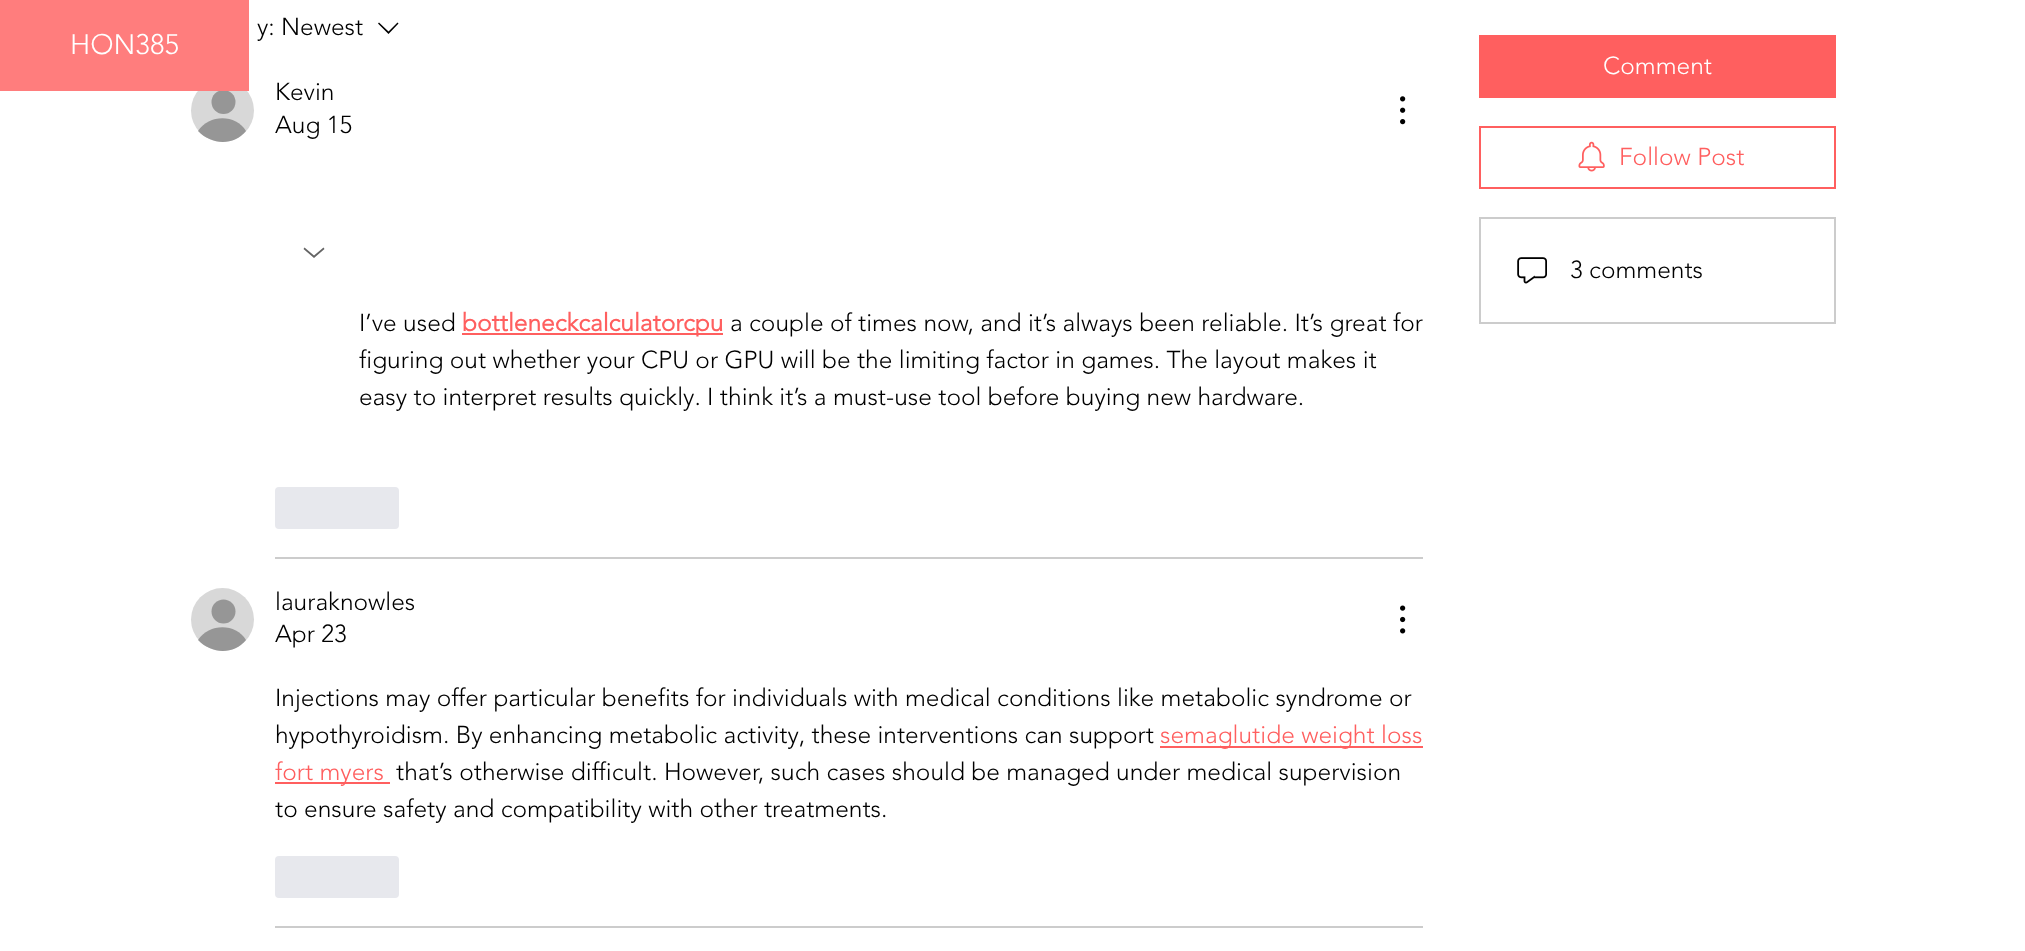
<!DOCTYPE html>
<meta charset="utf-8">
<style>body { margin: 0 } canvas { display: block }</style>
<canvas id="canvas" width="2025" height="951"></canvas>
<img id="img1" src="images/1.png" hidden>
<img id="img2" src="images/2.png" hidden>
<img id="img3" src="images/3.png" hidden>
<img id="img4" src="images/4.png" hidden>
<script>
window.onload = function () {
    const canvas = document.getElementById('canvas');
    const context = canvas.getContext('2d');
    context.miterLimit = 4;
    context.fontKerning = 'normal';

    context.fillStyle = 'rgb(255, 255, 255)';
    context.fillRect(0, 0, 2025, 951);
    context.fillStyle = 'rgb(216, 216, 216)';
    context.beginPath();
    context.arc(222.5, 110.5, 31.5, 0, 2 * Math.PI);
    context.fill();
    context.fillStyle = 'rgb(150, 150, 150)';
    context.beginPath();
    context.arc(223.5, 102, 12, 0, 2 * Math.PI);
    context.fill();
    context.fillStyle = 'rgb(255, 125, 125)';
    context.fillRect(0, 0, 249, 91);
    context.fillStyle = 'rgb(0, 0, 0)';
    context.beginPath();
    context.moveTo(397.5, 22.5);
    context.lineTo(398.5, 23.5);
    context.lineTo(388.5, 34);
    context.lineTo(378, 23.5);
    context.lineTo(379, 22.5);
    context.lineTo(388.5, 31.5);
    context.closePath();
    context.fill('evenodd');
    context.fillStyle = 'rgb(150, 150, 150)';
    context.beginPath();
    context.moveTo(246, 131);
    context.bezierCurveTo(234, 146, 211, 145, 198, 131);
    context.bezierCurveTo(209, 114, 236, 114, 246, 131);
    context.closePath();
    context.fill();
    context.drawImage(document.getElementById('img1'), 1400, 96, 6, 29);
    context.fillStyle = 'rgb(100, 100, 100)';
    context.beginPath();
    context.moveTo(314, 258);
    context.lineTo(303.5, 249);
    context.lineTo(304.5, 247.5);
    context.lineTo(314, 255.5);
    context.lineTo(323.5, 247.5);
    context.lineTo(324.5, 249);
    context.closePath();
    context.fill('evenodd');
    context.fillStyle = 'rgb(255, 95, 95)';
    context.fillRect(462, 333, 261, 2);
    context.fillStyle = 'rgb(231, 232, 237)';
    context.beginPath();
    context.roundRect(275, 487, 124, 42, 4);
    context.fill();
    context.fillStyle = 'rgb(204, 204, 204)';
    context.fillRect(275, 557, 1148, 2);
    context.fillStyle = 'rgb(216, 216, 216)';
    context.beginPath();
    context.arc(222.5, 619.5, 31.5, 0, 2 * Math.PI);
    context.fill();
    context.fillStyle = 'rgb(150, 150, 150)';
    context.beginPath();
    context.arc(223.5, 611.5, 12, 0, 2 * Math.PI);
    context.fill();
    context.beginPath();
    context.moveTo(246, 640);
    context.bezierCurveTo(234, 655, 211, 654, 198, 640);
    context.bezierCurveTo(209, 623, 236, 623, 246, 640);
    context.closePath();
    context.fill();
    context.drawImage(document.getElementById('img2'), 1400, 605, 6, 29);
    context.fillStyle = 'rgb(255, 95, 95)';
    context.fillRect(1160, 746, 263, 2);
    context.fillRect(275, 782, 115, 2);
    context.fillStyle = 'rgb(231, 232, 237)';
    context.beginPath();
    context.roundRect(275, 856, 124, 42, 4);
    context.fill();
    context.fillStyle = 'rgb(204, 204, 204)';
    context.fillRect(275, 926, 1148, 2);
    context.fillStyle = 'rgb(255, 95, 95)';
    context.fillRect(1479, 35, 357, 63);
    context.strokeStyle = 'rgb(255, 95, 95)';
    context.lineWidth = 2;
    context.strokeRect(1480, 127, 355, 61);
    context.drawImage(document.getElementById('img3'), 1578, 141, 27, 31);
    context.strokeStyle = 'rgb(204, 204, 204)';
    context.strokeRect(1480, 218, 355, 105);
    context.drawImage(document.getElementById('img4'), 1517, 257, 30, 27);
    context.font = '300 28px "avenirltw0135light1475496"';
    context.fillStyle = 'rgb(255, 255, 255)';
    context.fillText('HON385', 70, 54);
    context.font = '300 24.5px "avenirltw0135light1475496"';
    context.fillStyle = 'rgb(0, 0, 0)';
    context.fillText('y:', 257, 35);
    context.fillText('Newest', 281, 35);
    context.fillText('Kevin', 275, 100);
    context.fillText('Aug 15', 275, 133);
    context.fillText('I’ve used', 359, 331);
    context.font = 'bold 24.5px "avenirltw0135light1475496"';
    context.fillStyle = 'rgb(255, 95, 95)';
    context.fillText('bottleneckcalculatorcpu', 462, 331);
    context.font = '300 24.5px "avenirltw0135light1475496"';
    context.fillStyle = 'rgb(0, 0, 0)';
    context.fillText('a couple of times now, and it’s always been reliable. It’s great for', 730, 331);
    context.fillText('figuring out whether your CPU or GPU will be the limiting factor in games. The layout makes it', 359, 368);
    context.fillText('easy to interpret results quickly. I think it’s a must-use tool before buying new hardware.', 359, 405);
    context.fillText('lauraknowles', 275, 610);
    context.fillText('Apr 23', 275, 642);
    context.fillText('Injections may offer particular benefits for individuals with medical conditions like metabolic syndrome or', 275, 706);
    context.fillText('hypothyroidism. By enhancing metabolic activity, these interventions can support', 275, 743);
    context.fillStyle = 'rgb(255, 95, 95)';
    context.fillText('semaglutide weight loss', 1160, 743);
    context.fillText('fort myers', 275, 780);
    context.fillStyle = 'rgb(0, 0, 0)';
    context.fillText('that’s otherwise difficult. However, such cases should be managed under medical supervision', 396, 780);
    context.fillText('to ensure safety and compatibility with other treatments.', 275, 817);
    context.fillStyle = 'rgb(255, 255, 255)';
    context.fillText('Comment', 1603, 74);
    context.fillStyle = 'rgb(255, 95, 95)';
    context.fillText('Follow Post', 1619, 165);
    context.fillStyle = 'rgb(0, 0, 0)';
    context.fillText('3 comments', 1570, 278);
};
</script>
